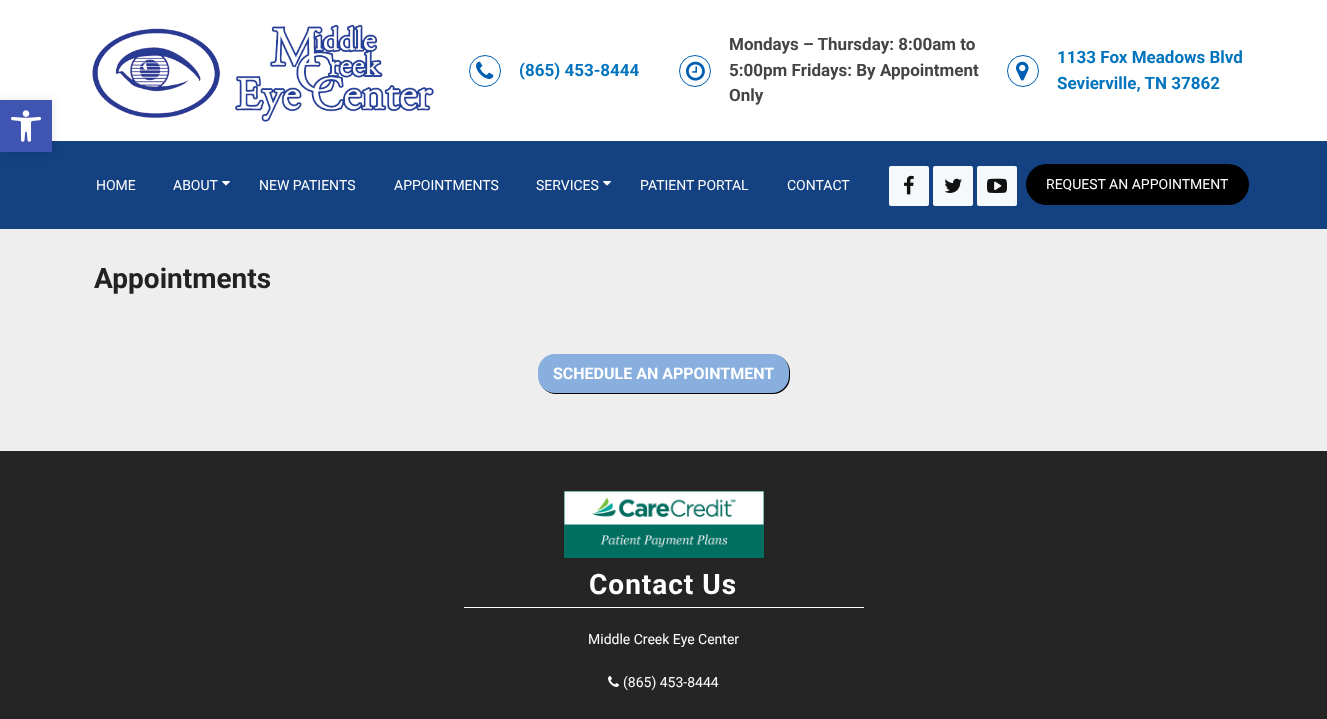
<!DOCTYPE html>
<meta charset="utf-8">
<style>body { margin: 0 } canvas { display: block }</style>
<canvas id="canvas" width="1327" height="719"></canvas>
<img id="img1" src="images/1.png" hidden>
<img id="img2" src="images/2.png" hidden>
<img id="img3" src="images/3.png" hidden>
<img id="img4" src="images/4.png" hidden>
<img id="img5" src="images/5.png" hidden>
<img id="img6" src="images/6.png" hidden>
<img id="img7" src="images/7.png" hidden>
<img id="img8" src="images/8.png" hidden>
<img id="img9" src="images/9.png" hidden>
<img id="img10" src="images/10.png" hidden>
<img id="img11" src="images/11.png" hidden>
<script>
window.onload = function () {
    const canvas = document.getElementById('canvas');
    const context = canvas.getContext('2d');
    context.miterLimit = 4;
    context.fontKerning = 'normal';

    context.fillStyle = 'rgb(238, 238, 238)';
    context.fillRect(0, 0, 1327, 719);
    context.fillStyle = 'rgb(255, 255, 255)';
    context.fillRect(0, 0, 1327, 141);
    context.fillStyle = 'rgb(20, 65, 130)';
    context.fillRect(0, 141, 1327, 88);
    context.fillStyle = 'rgba(0, 0, 0, 0.1)';
    context.filter = 'blur(5px)';
    context.beginPath();
    context.rect(0, 100, 52, 52);
    context.fill();
    context.filter = 'none';
    context.fillStyle = 'rgb(64, 84, 178)';
    context.fillRect(0, 100, 52, 52);
    context.drawImage(document.getElementById('img1'), 11, 110, 30, 32);
    context.drawImage(document.getElementById('img2'), 92, 24, 342, 98);
    context.beginPath();
    context.arc(485, 71, 15.5, 0, 2 * Math.PI);
    context.strokeStyle = 'rgb(0, 94, 178)';
    context.stroke();
    context.drawImage(document.getElementById('img3'), 476, 61, 18, 18);
    context.beginPath();
    context.arc(695, 71, 15.5, 0, 2 * Math.PI);
    context.stroke();
    context.drawImage(document.getElementById('img4'), 686, 61, 19, 20);
    context.beginPath();
    context.arc(1023, 71, 15.5, 0, 2 * Math.PI);
    context.stroke();
    context.drawImage(document.getElementById('img5'), 1016, 61, 13, 20);
    context.drawImage(document.getElementById('img6'), 222, 181, 8, 5);
    context.drawImage(document.getElementById('img6'), 603, 181, 8, 5);
    context.fillStyle = 'rgb(245, 249, 251)';
    context.beginPath();
    context.roundRect(889, 166, 40, 40, 2);
    context.fill();
    context.drawImage(document.getElementById('img7'), 904, 175, 10, 20);
    context.beginPath();
    context.roundRect(933, 166, 40, 40, 2);
    context.fill();
    context.drawImage(document.getElementById('img8'), 944, 178, 18, 15);
    context.beginPath();
    context.roundRect(977, 166, 40, 40, 2);
    context.fill();
    context.drawImage(document.getElementById('img9'), 987, 178, 20, 15);
    context.fillStyle = 'rgb(0, 0, 0)';
    context.beginPath();
    context.roundRect(1026, 164, 223, 41, 20.5);
    context.fill();
    context.filter = 'blur(0.5px)';
    context.beginPath();
    context.roundRect(539, 355, 251, 39, 17);
    context.fill();
    context.filter = 'none';
    context.fillStyle = 'rgb(136, 175, 221)';
    context.beginPath();
    context.roundRect(538, 354, 251, 39, 17);
    context.fill();
    context.fillStyle = 'rgb(37, 37, 37)';
    context.fillRect(0, 451, 1327, 268);
    context.drawImage(document.getElementById('img10'), 564, 491, 200, 67);
    context.fillStyle = 'rgb(255, 255, 255)';
    context.fillRect(464, 607, 400, 1);
    context.drawImage(document.getElementById('img11'), 608, 676, 11, 11);
    context.font = 'bold 17px Roboto';
    context.fillStyle = 'rgb(2, 116, 190)';
    context.fillText('(865) 453-8444', 519, 76);
    context.fillStyle = 'rgb(68, 68, 68)';
    context.fillText('Mondays – Thursday: 8:00am to', 729, 50);
    context.fillText('5:00pm Fridays: By Appointment', 729, 76);
    context.fillText('Only', 729, 101);
    context.fillStyle = 'rgb(2, 116, 190)';
    context.fillText('1133 Fox Meadows Blvd', 1057, 63);
    context.fillText('Sevierville, TN 37862', 1057, 89);
    context.font = '14px Roboto';
    context.fillStyle = 'rgb(255, 255, 255)';
    context.fillText('HOME', 96, 190);
    context.fillText('ABOUT', 173, 190);
    context.fillText('NEW PATIENTS', 259, 190);
    context.fillText('APPOINTMENTS', 394, 190);
    context.fillText('SERVICES', 536, 190);
    context.fillText('PATIENT PORTAL', 640, 190);
    context.fillText('CONTACT', 787, 190);
    context.fillText('REQUEST AN APPOINTMENT', 1046, 189);
    context.font = 'bold 28px Roboto';
    context.fillStyle = 'rgb(34, 34, 34)';
    context.fillText('Appointments', 94, 288);
    context.font = 'bold 16px Roboto';
    context.fillStyle = 'rgb(255, 255, 255)';
    context.fillText('SCHEDULE AN APPOINTMENT', 553, 379);
    context.letterSpacing = '1px';
    context.font = 'bold 28px Roboto';
    context.fillText('Contact Us', 589, 594);
    context.letterSpacing = '0px';
    context.font = '14px Roboto';
    context.fillText('Middle Creek Eye Center', 588, 644);
    context.fillText('(865) 453-8444', 623, 687);
};
</script>
